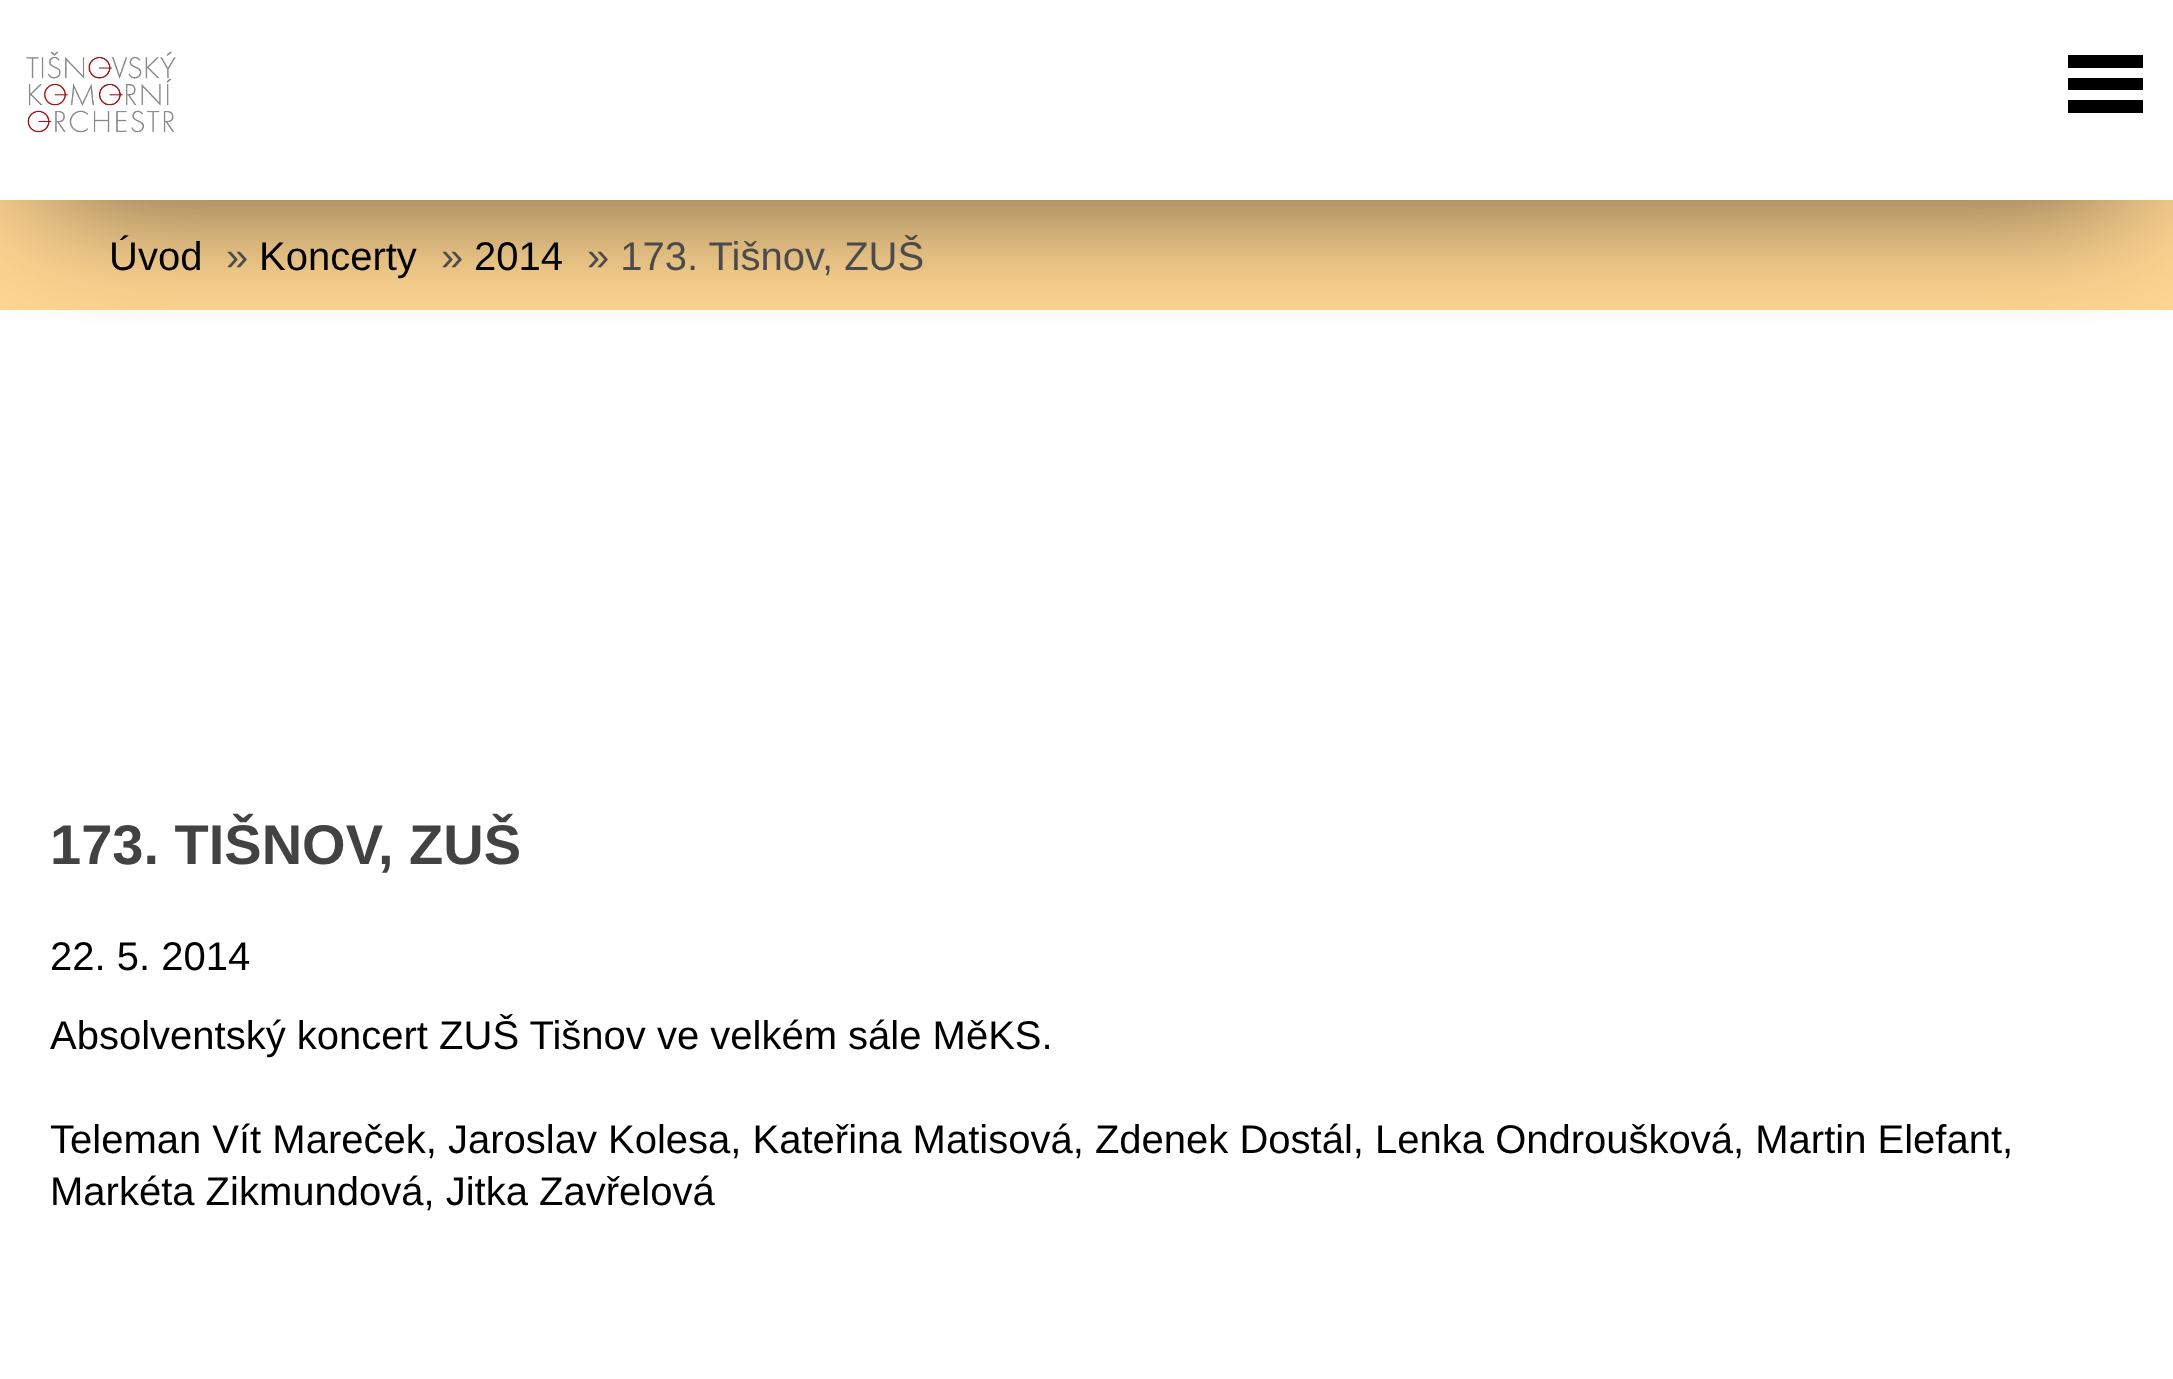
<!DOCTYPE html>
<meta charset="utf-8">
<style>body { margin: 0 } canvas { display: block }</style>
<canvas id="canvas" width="2173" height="1379"></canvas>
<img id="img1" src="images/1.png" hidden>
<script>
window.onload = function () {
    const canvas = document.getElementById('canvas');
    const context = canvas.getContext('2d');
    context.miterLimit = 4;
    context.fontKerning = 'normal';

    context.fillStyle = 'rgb(255, 255, 255)';
    context.fillRect(0, 0, 2173, 1379);
    context.fillStyle = 'rgb(255, 214, 146)';
    context.fillRect(0, 200, 2173, 110);
    context.save();
    context.beginPath();
    context.rect(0, 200, 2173, 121);
    context.clip();
    context.fillStyle = 'rgba(0, 0, 0, 0.7)';
    context.filter = 'blur(67.5px)';
    context.beginPath();
    context.rect(45, 83, 2085, 110);
    context.fill();
    context.filter = 'none';
    context.restore();
    context.drawImage(document.getElementById('img1'), 26, 51, 150, 82);
    context.fillStyle = 'rgb(0, 0, 0)';
    context.fillRect(2068, 55, 75, 13);
    context.fillRect(2068, 78, 75, 12);
    context.fillRect(2068, 100, 75, 13);
    context.font = '40px Liberation Sans';
    context.fillText('Úvod', 109, 270);
    context.fillStyle = 'rgb(75, 75, 75)';
    context.fillText('»', 226, 270);
    context.fillStyle = 'rgb(0, 0, 0)';
    context.fillText('Koncerty', 259, 270);
    context.fillStyle = 'rgb(75, 75, 75)';
    context.fillText('»', 441, 270);
    context.fillStyle = 'rgb(0, 0, 0)';
    context.fillText('2014', 474, 270);
    context.fillStyle = 'rgb(75, 75, 75)';
    context.fillText('» 173. Tišnov, ZUŠ', 587, 270);
    context.font = 'bold 56px Liberation Sans';
    context.fillStyle = 'rgb(66, 66, 66)';
    context.fillText('173. TIŠNOV, ZUŠ', 50, 864);
    context.font = '40px Liberation Sans';
    context.fillStyle = 'rgb(0, 0, 0)';
    context.fillText('22. 5. 2014', 50, 970);
    context.fillText('Absolventský koncert ZUŠ Tišnov ve velkém sále MěKS.', 50, 1049);
    context.fillText('Teleman Vít Mareček, Jaroslav Kolesa, Kateřina Matisová, Zdenek Dostál, Lenka Ondroušková, Martin Elefant,', 50, 1153);
    context.fillText('Markéta Zikmundová, Jitka Zavřelová', 50, 1205);
};
</script>
